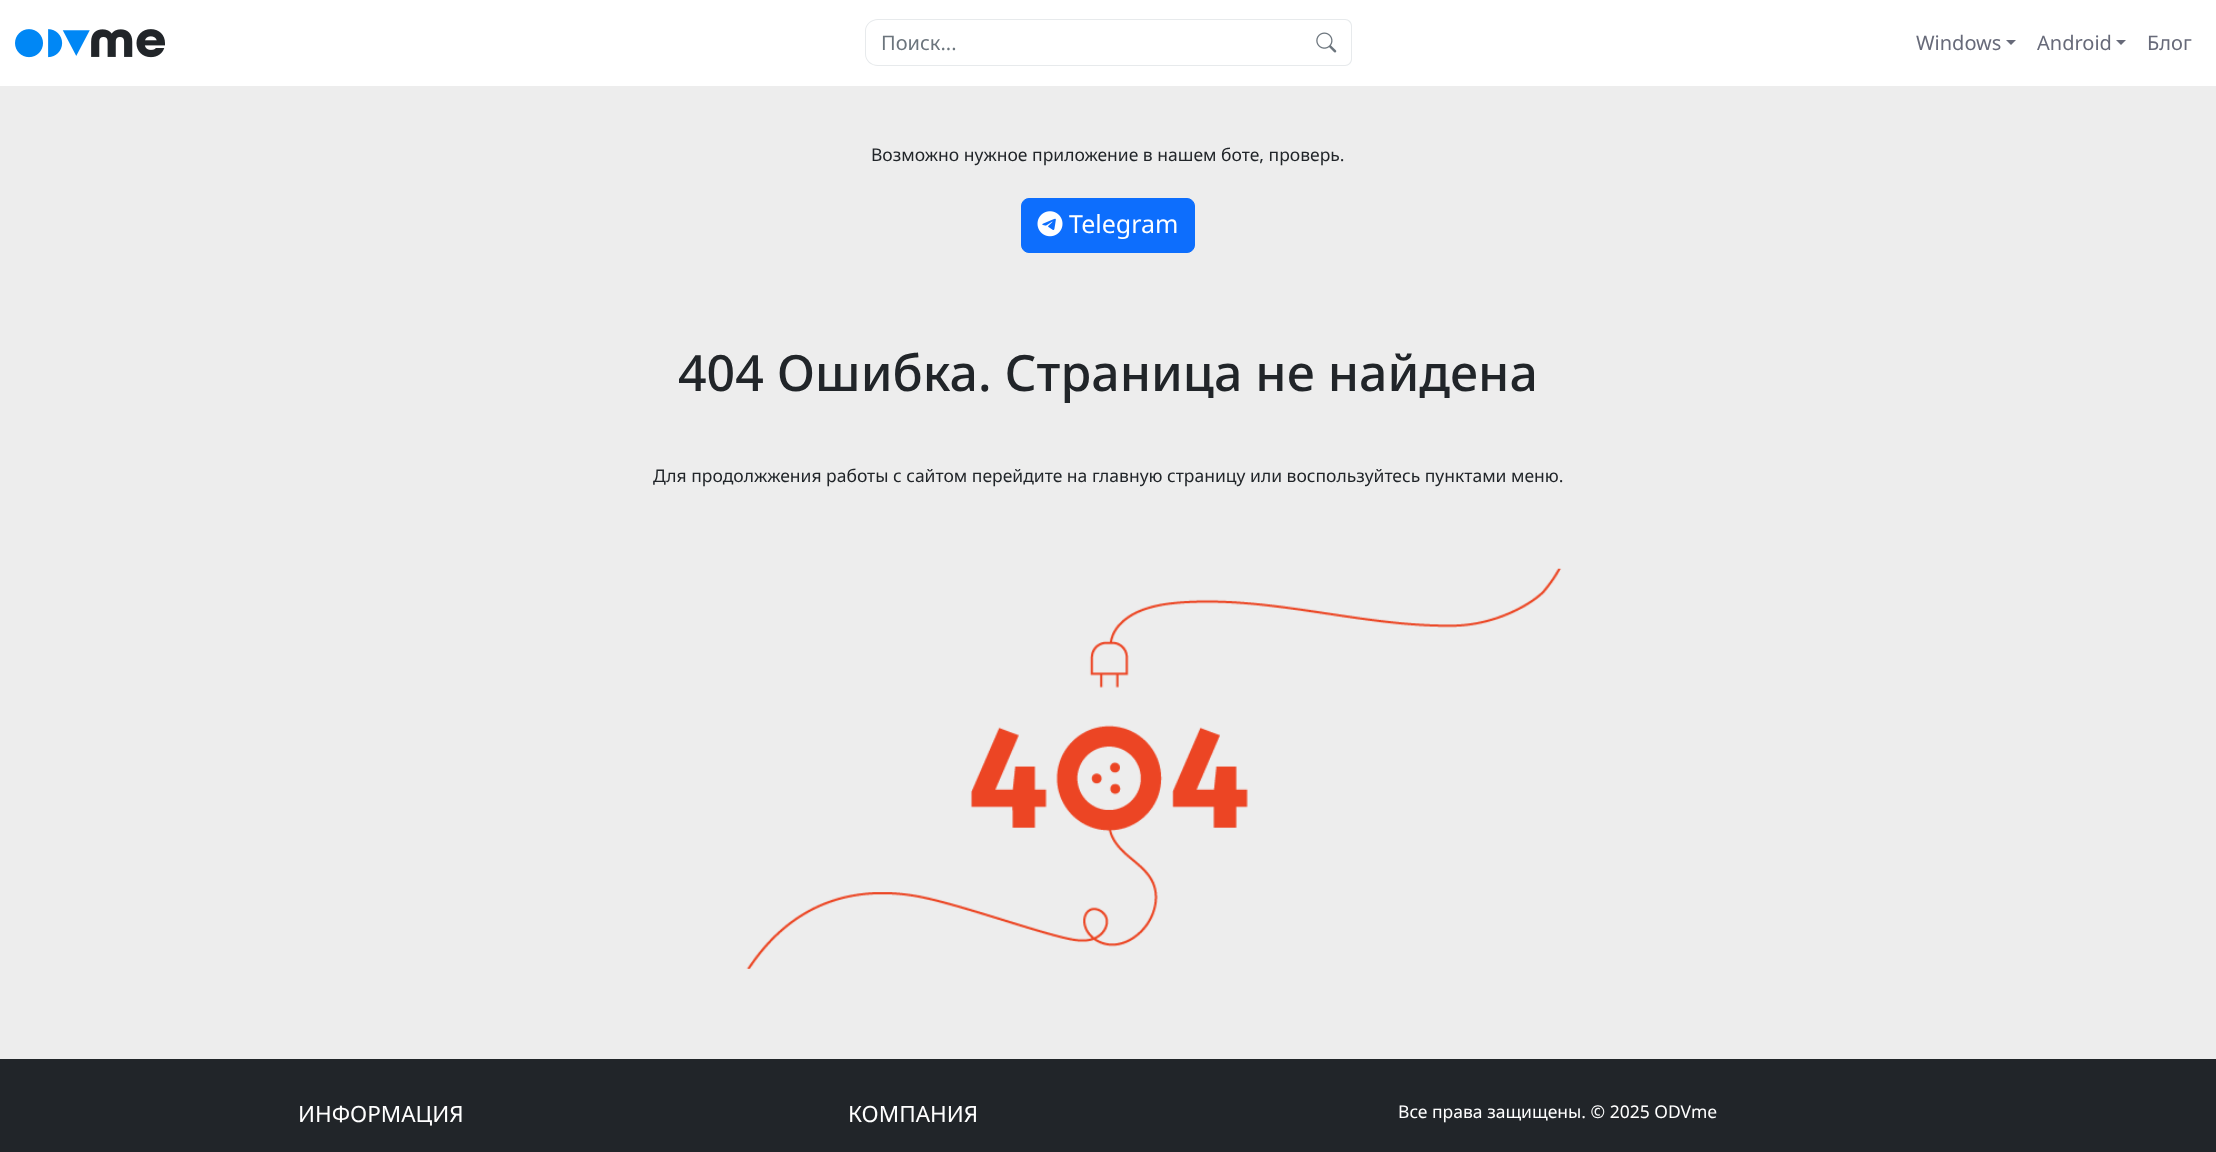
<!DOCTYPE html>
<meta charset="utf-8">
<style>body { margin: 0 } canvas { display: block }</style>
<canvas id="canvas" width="2216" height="1152"></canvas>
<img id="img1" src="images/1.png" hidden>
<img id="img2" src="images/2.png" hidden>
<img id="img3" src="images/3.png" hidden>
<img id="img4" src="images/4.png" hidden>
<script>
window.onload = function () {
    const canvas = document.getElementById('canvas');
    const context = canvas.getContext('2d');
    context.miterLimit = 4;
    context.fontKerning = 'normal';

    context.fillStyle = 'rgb(237, 237, 237)';
    context.fillRect(0, 0, 2216, 1152);
    context.fillStyle = 'rgb(255, 255, 255)';
    context.fillRect(0, 0, 2216, 86);
    context.drawImage(document.getElementById('img1'), 15, 29, 150, 29);
    context.fillStyle = 'rgb(231, 234, 236)';
    context.beginPath();
    context.moveTo(878, 19);
    context.lineTo(1302, 19);
    context.lineTo(1302, 66);
    context.lineTo(878, 66);
    context.bezierCurveTo(871, 66, 865, 61, 865, 54);
    context.lineTo(865, 31);
    context.bezierCurveTo(865, 24, 871, 19, 878, 19);
    context.closePath();
    context.moveTo(878, 20);
    context.lineTo(1302, 20);
    context.lineTo(1302, 65);
    context.lineTo(878, 65);
    context.bezierCurveTo(871, 65, 866, 60, 866, 54);
    context.lineTo(866, 31);
    context.bezierCurveTo(866, 25, 871, 20, 878, 20);
    context.closePath();
    context.fill('evenodd');
    context.beginPath();
    context.moveTo(1301, 19);
    context.lineTo(1345, 19);
    context.bezierCurveTo(1349, 19, 1352, 22, 1352, 26);
    context.lineTo(1352, 59);
    context.bezierCurveTo(1352, 63, 1349, 66, 1345, 66);
    context.lineTo(1301, 66);
    context.closePath();
    context.moveTo(1301, 20);
    context.lineTo(1345, 20);
    context.bezierCurveTo(1348, 20, 1351, 23, 1351, 26);
    context.lineTo(1351, 59);
    context.bezierCurveTo(1351, 62, 1348, 65, 1345, 65);
    context.lineTo(1301, 65);
    context.closePath();
    context.fill('evenodd');
    context.drawImage(document.getElementById('img2'), 1316, 32, 21, 21);
    context.fillStyle = 'rgb(103, 106, 121)';
    context.beginPath();
    context.moveTo(2006, 40);
    context.lineTo(2016, 40);
    context.lineTo(2011, 45);
    context.closePath();
    context.fill();
    context.beginPath();
    context.moveTo(2116, 40);
    context.lineTo(2126, 40);
    context.lineTo(2121, 45);
    context.closePath();
    context.fill();
    context.fillStyle = 'rgb(13, 110, 253)';
    context.beginPath();
    context.roundRect(1021.5, 198.5, 173, 54, 7.5);
    context.fill();
    context.strokeStyle = 'rgb(13, 110, 253)';
    context.stroke();
    context.drawImage(document.getElementById('img3'), 1037, 211, 26, 26);
    context.drawImage(document.getElementById('img4'), 746, 568, 816, 401);
    context.fillStyle = 'rgb(33, 37, 41)';
    context.fillRect(0, 1059, 2216, 93);
    context.font = '20px Noto Sans';
    context.fillStyle = 'rgb(108, 117, 125)';
    context.fillText('Поиск...', 881, 50);
    context.fillStyle = 'rgb(103, 106, 121)';
    context.fillText('Windows', 1916, 50);
    context.fillText('Android', 2037, 50);
    context.fillText('Блог', 2147, 50);
    context.font = '17.5px Noto Sans';
    context.fillStyle = 'rgb(33, 37, 41)';
    context.fillText('Возможно нужное приложение в нашем боте, проверь.', 871, 161);
    context.font = '25px Noto Sans';
    context.fillStyle = 'rgb(255, 255, 255)';
    context.fillText('Telegram', 1069, 233);
    context.font = '500 50px Noto Sans';
    context.fillStyle = 'rgb(33, 37, 41)';
    context.fillText('404 Ошибка. Страница не найдена', 678, 391);
    context.font = '17.5px Noto Sans';
    context.fillText('Для продолжжения работы с сайтом перейдите на главную страницу или воспользуйтесь пунктами меню.', 653, 482);
    context.font = '22.5px Noto Sans';
    context.fillStyle = 'rgb(255, 255, 255)';
    context.fillText('ИНФОРМАЦИЯ', 298, 1122);
    context.fillText('КОМПАНИЯ', 848, 1122);
    context.font = '17.5px Noto Sans';
    context.fillText('Все права защищены. © 2025 ODVme', 1398, 1118);
};
</script>
